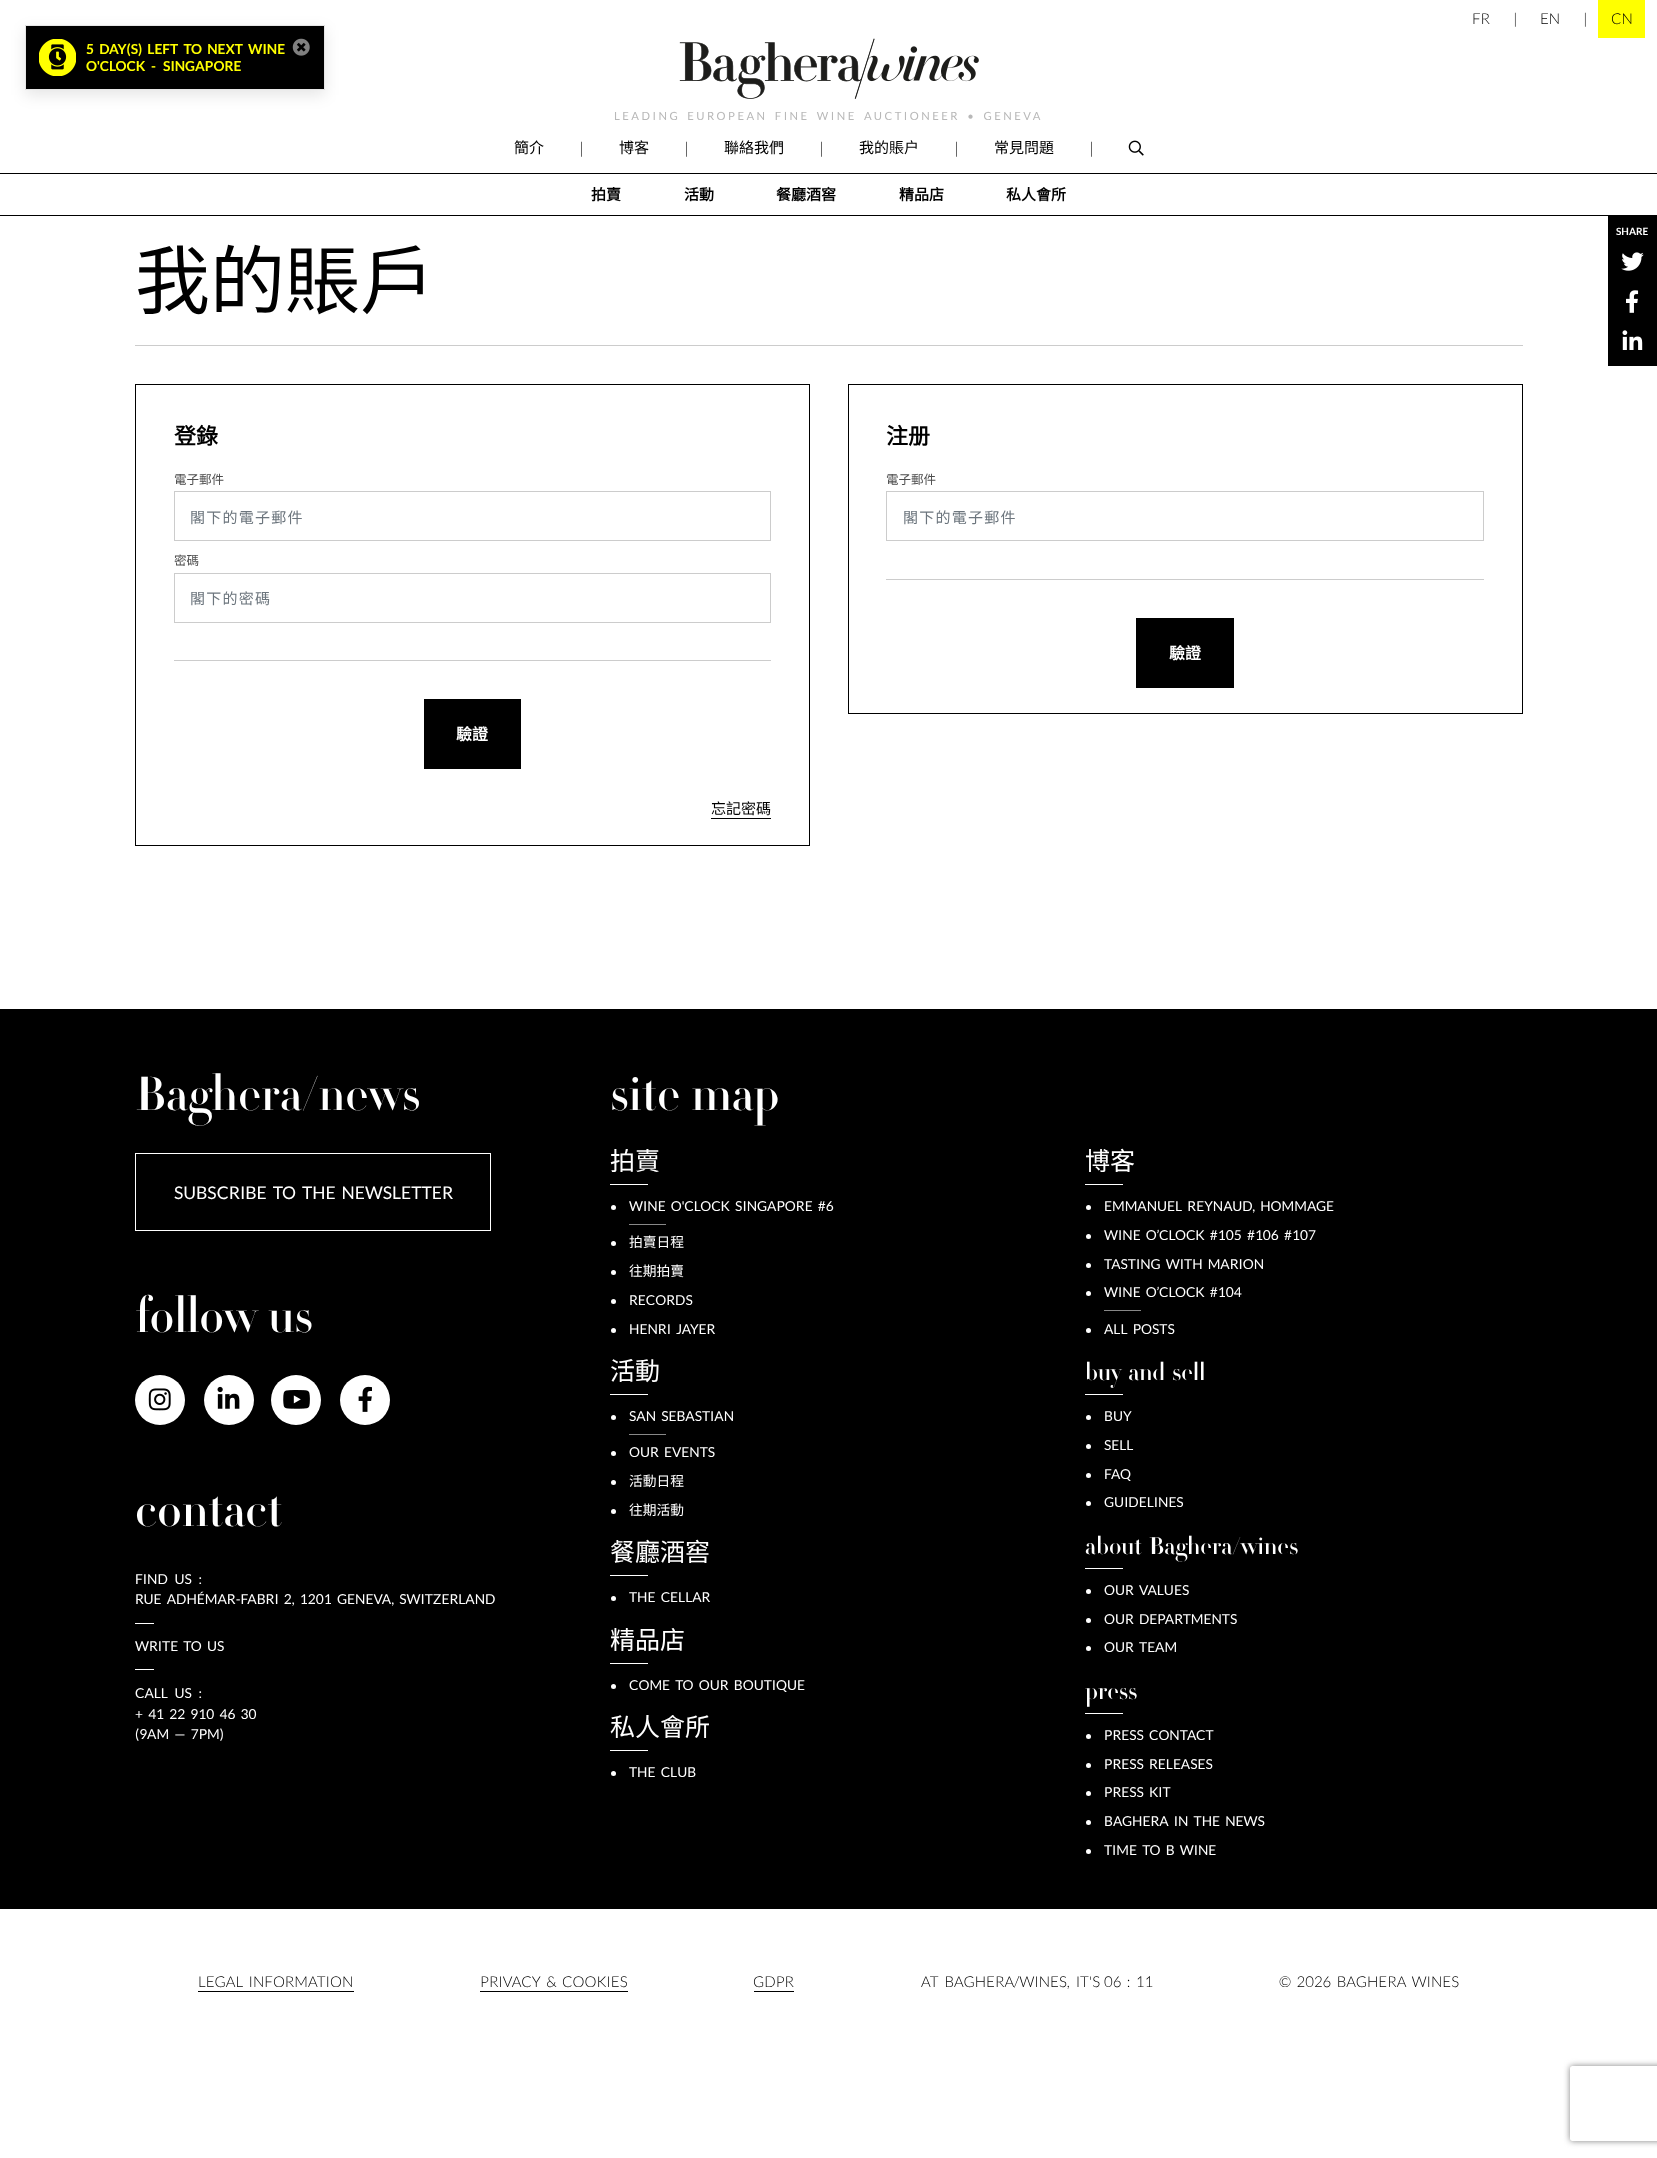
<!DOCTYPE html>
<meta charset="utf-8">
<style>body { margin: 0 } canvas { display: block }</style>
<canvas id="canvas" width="1657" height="2158"></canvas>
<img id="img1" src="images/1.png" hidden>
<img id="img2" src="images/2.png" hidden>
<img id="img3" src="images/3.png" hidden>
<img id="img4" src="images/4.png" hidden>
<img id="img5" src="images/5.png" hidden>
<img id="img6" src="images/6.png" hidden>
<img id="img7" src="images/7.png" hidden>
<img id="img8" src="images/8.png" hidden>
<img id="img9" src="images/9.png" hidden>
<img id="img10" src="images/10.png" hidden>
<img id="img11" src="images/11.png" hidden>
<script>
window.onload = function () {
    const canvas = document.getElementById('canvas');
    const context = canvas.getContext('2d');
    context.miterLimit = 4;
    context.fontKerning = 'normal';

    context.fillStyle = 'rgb(255, 255, 255)';
    context.fillRect(0, 0, 1657, 2158);
    context.fillStyle = 'rgba(0, 0, 0, 0.1)';
    context.filter = 'blur(7.5px)';
    context.beginPath();
    context.rect(25, 30, 300, 65);
    context.fill();
    context.filter = 'none';
    context.fillStyle = 'rgb(0, 0, 0)';
    context.beginPath();
    context.rect(25.5, 25.5, 299, 64);
    context.fill();
    context.strokeStyle = 'rgb(230, 230, 230)';
    context.stroke();
    context.drawImage(document.getElementById('img1'), 39, 39, 37, 37);
    context.drawImage(document.getElementById('img2'), 292, 38, 18, 18);
    context.fillStyle = 'rgb(255, 255, 0)';
    context.fillRect(1598, 0, 47, 38);
    context.drawImage(document.getElementById('img3'), 679, 38, 300, 61);
    context.drawImage(document.getElementById('img4'), 1128, 140, 16, 16);
    context.fillStyle = 'rgb(0, 0, 0)';
    context.fillRect(0, 173, 1657, 1);
    context.fillRect(0, 215, 1657, 1);
    context.fillRect(1608, 216, 49, 150);
    context.drawImage(document.getElementById('img5'), 1621, 252, 23, 19);
    context.drawImage(document.getElementById('img6'), 1626, 290, 13, 23);
    context.drawImage(document.getElementById('img7'), 1622, 330, 21, 20);
    context.fillStyle = 'rgb(204, 204, 204)';
    context.fillRect(135, 345, 1388, 1);
    context.strokeStyle = 'rgb(0, 0, 0)';
    context.strokeRect(135.5, 384.5, 674, 461);
    context.strokeStyle = 'rgb(204, 204, 204)';
    context.strokeRect(174.5, 491.5, 596, 49);
    context.strokeRect(174.5, 573.5, 596, 49);
    context.fillRect(174, 660, 597, 1);
    context.fillStyle = 'rgb(0, 0, 0)';
    context.fillRect(424, 699, 97, 70);
    context.save();
    context.beginPath();
    context.moveTo(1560, 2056);
    context.lineTo(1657, 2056);
    context.lineTo(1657, 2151);
    context.lineTo(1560, 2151);
    context.closePath();
    context.moveTo(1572.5, 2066);
    context.lineTo(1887.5, 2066);
    context.bezierCurveTo(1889, 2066, 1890, 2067, 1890, 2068.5);
    context.lineTo(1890, 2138.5);
    context.bezierCurveTo(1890, 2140, 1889, 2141, 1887.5, 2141);
    context.lineTo(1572.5, 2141);
    context.bezierCurveTo(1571, 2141, 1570, 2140, 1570, 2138.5);
    context.lineTo(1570, 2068.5);
    context.bezierCurveTo(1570, 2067, 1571, 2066, 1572.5, 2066);
    context.closePath();
    context.clip('evenodd');
    context.fillStyle = 'rgb(128, 128, 128)';
    context.filter = 'blur(3px)';
    context.beginPath();
    context.roundRect(1570, 2066, 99, 75, 2.5);
    context.fill();
    context.filter = 'none';
    context.restore();
    context.fillRect(711, 818, 60, 1);
    context.strokeStyle = 'rgb(0, 0, 0)';
    context.strokeRect(848.5, 384.5, 674, 329);
    context.strokeStyle = 'rgb(204, 204, 204)';
    context.strokeRect(886.5, 491.5, 597, 49);
    context.fillStyle = 'rgb(204, 204, 204)';
    context.fillRect(886, 579, 598, 1);
    context.fillStyle = 'rgb(0, 0, 0)';
    context.fillRect(1136, 618, 98, 70);
    context.fillRect(0, 1009, 1657, 900);
    context.strokeStyle = 'rgb(255, 255, 255)';
    context.strokeRect(135.5, 1153.5, 355, 77);
    context.fillStyle = 'rgb(255, 255, 255)';
    context.beginPath();
    context.arc(160, 1400, 25, 0, 2 * Math.PI);
    context.fill();
    context.drawImage(document.getElementById('img8'), 148, 1388, 23, 23);
    context.beginPath();
    context.arc(229, 1400, 25, 0, 2 * Math.PI);
    context.fill();
    context.drawImage(document.getElementById('img9'), 217, 1386, 23, 23);
    context.beginPath();
    context.arc(296, 1400, 25, 0, 2 * Math.PI);
    context.fill();
    context.drawImage(document.getElementById('img10'), 283, 1390, 27, 19);
    context.beginPath();
    context.arc(365, 1400, 25, 0, 2 * Math.PI);
    context.fill();
    context.drawImage(document.getElementById('img11'), 358, 1386, 14, 26);
    context.fillRect(135, 1623, 19, 1);
    context.fillRect(135, 1669, 19, 1);
    context.fillRect(610, 1184, 38, 1);
    context.beginPath();
    context.arc(613.5, 1207.5, 2.5, 0, 2 * Math.PI);
    context.fill();
    context.fillStyle = 'rgb(136, 136, 136)';
    context.fillRect(629, 1224, 37, 1);
    context.fillStyle = 'rgb(255, 255, 255)';
    context.beginPath();
    context.arc(613.5, 1243.5, 2.5, 0, 2 * Math.PI);
    context.fill();
    context.beginPath();
    context.arc(613.5, 1272.5, 2.5, 0, 2 * Math.PI);
    context.fill();
    context.beginPath();
    context.arc(613.5, 1301.5, 2.5, 0, 2 * Math.PI);
    context.fill();
    context.beginPath();
    context.arc(613.5, 1330.5, 2.5, 0, 2 * Math.PI);
    context.fill();
    context.fillRect(610, 1394, 38, 1);
    context.beginPath();
    context.arc(613.5, 1417.5, 2.5, 0, 2 * Math.PI);
    context.fill();
    context.fillStyle = 'rgb(136, 136, 136)';
    context.fillRect(629, 1434, 37, 1);
    context.fillStyle = 'rgb(255, 255, 255)';
    context.beginPath();
    context.arc(613.5, 1453.5, 2.5, 0, 2 * Math.PI);
    context.fill();
    context.beginPath();
    context.arc(613.5, 1482.5, 2.5, 0, 2 * Math.PI);
    context.fill();
    context.beginPath();
    context.arc(613.5, 1511.5, 2.5, 0, 2 * Math.PI);
    context.fill();
    context.fillRect(610, 1575, 38, 1);
    context.beginPath();
    context.arc(613.5, 1598.5, 2.5, 0, 2 * Math.PI);
    context.fill();
    context.fillRect(610, 1663, 38, 1);
    context.beginPath();
    context.arc(613.5, 1686.5, 2.5, 0, 2 * Math.PI);
    context.fill();
    context.fillRect(610, 1750, 38, 1);
    context.beginPath();
    context.arc(613.5, 1773.5, 2.5, 0, 2 * Math.PI);
    context.fill();
    context.fillRect(1085, 1184, 38, 1);
    context.beginPath();
    context.arc(1088.5, 1207.5, 2.5, 0, 2 * Math.PI);
    context.fill();
    context.beginPath();
    context.arc(1088.5, 1236.5, 2.5, 0, 2 * Math.PI);
    context.fill();
    context.beginPath();
    context.arc(1088.5, 1265.5, 2.5, 0, 2 * Math.PI);
    context.fill();
    context.beginPath();
    context.arc(1088.5, 1293.5, 2.5, 0, 2 * Math.PI);
    context.fill();
    context.fillStyle = 'rgb(136, 136, 136)';
    context.fillRect(1104, 1310, 37, 1);
    context.fillStyle = 'rgb(255, 255, 255)';
    context.beginPath();
    context.arc(1088.5, 1330.5, 2.5, 0, 2 * Math.PI);
    context.fill();
    context.fillRect(1085, 1394, 38, 1);
    context.beginPath();
    context.arc(1088.5, 1417.5, 2.5, 0, 2 * Math.PI);
    context.fill();
    context.beginPath();
    context.arc(1088.5, 1446.5, 2.5, 0, 2 * Math.PI);
    context.fill();
    context.beginPath();
    context.arc(1088.5, 1475.5, 2.5, 0, 2 * Math.PI);
    context.fill();
    context.beginPath();
    context.arc(1088.5, 1503.5, 2.5, 0, 2 * Math.PI);
    context.fill();
    context.fillRect(1085, 1568, 38, 1);
    context.beginPath();
    context.arc(1088.5, 1591.5, 2.5, 0, 2 * Math.PI);
    context.fill();
    context.beginPath();
    context.arc(1088.5, 1620.5, 2.5, 0, 2 * Math.PI);
    context.fill();
    context.beginPath();
    context.arc(1088.5, 1648.5, 2.5, 0, 2 * Math.PI);
    context.fill();
    context.fillRect(1085, 1713, 38, 1);
    context.beginPath();
    context.arc(1088.5, 1736.5, 2.5, 0, 2 * Math.PI);
    context.fill();
    context.beginPath();
    context.arc(1088.5, 1765.5, 2.5, 0, 2 * Math.PI);
    context.fill();
    context.beginPath();
    context.arc(1088.5, 1793.5, 2.5, 0, 2 * Math.PI);
    context.fill();
    context.beginPath();
    context.arc(1088.5, 1822.5, 2.5, 0, 2 * Math.PI);
    context.fill();
    context.beginPath();
    context.arc(1088.5, 1851.5, 2.5, 0, 2 * Math.PI);
    context.fill();
    context.fillStyle = 'rgb(0, 0, 0)';
    context.fillRect(198, 1991, 156, 1);
    context.fillRect(480, 1991, 148, 1);
    context.fillRect(754, 1991, 40, 1);
    context.wordSpacing = '2.5px';
    context.font = 'bold 13.75px Lato';
    context.fillStyle = 'rgb(255, 255, 0)';
    context.fillText('5 DAY(S) LEFT TO NEXT WINE', 86, 54);
    context.wordSpacing = '0px';
    context.fillText('O\'CLOCK', 86, 71);
    context.fillText('-', 151, 71);
    context.fillText('SINGAPORE', 163, 71);
    context.font = '300 15px Lato';
    context.fillStyle = 'rgb(0, 0, 0)';
    context.fillText('FR', 1472, 24);
    context.fillText('|', 1513, 24);
    context.fillText('EN', 1540, 24);
    context.fillText('|', 1583, 24);
    context.fillText('CN', 1611, 24);
    context.letterSpacing = '2.5px';
    context.wordSpacing = '2.5px';
    context.font = '11.25px Lato';
    context.fillStyle = 'rgb(184, 184, 184)';
    context.fillText('LEADING EUROPEAN FINE WINE AUCTIONEER • GENEVA', 614, 120);
    context.letterSpacing = '0px';
    context.wordSpacing = '0px';
    context.font = '15px Noto Sans CJK SC';
    context.fillStyle = 'rgb(0, 0, 0)';
    context.fillText('簡介', 514, 153);
    context.font = '300 16px Lato';
    context.fillText('|', 579, 154);
    context.font = '15px Noto Sans CJK SC';
    context.fillText('博客', 619, 153);
    context.font = '300 16px Lato';
    context.fillText('|', 684, 154);
    context.font = '15px Noto Sans CJK SC';
    context.fillText('聯絡我們', 724, 153);
    context.font = '300 16px Lato';
    context.fillText('|', 819, 154);
    context.font = '15px Noto Sans CJK SC';
    context.fillText('我的賬户', 859, 153);
    context.font = '300 16px Lato';
    context.fillText('|', 954, 154);
    context.font = '15px Noto Sans CJK SC';
    context.fillText('常見問題', 994, 153);
    context.font = '300 16px Lato';
    context.fillText('|', 1089, 154);
    context.font = 'bold 15px Noto Sans CJK SC';
    context.fillText('拍賣', 591, 200);
    context.fillText('活動', 684, 200);
    context.fillText('餐廳酒窖', 776, 200);
    context.fillText('精品店', 899, 200);
    context.fillText('私人會所', 1006, 200);
    context.font = 'bold 10px Lato';
    context.fillStyle = 'rgb(255, 255, 255)';
    context.fillText('SHARE', 1616, 235);
    context.font = '75px Noto Sans CJK SC';
    context.fillStyle = 'rgb(0, 0, 0)';
    context.fillText('我的賬戶', 135, 308);
    context.font = 'bold 22px Noto Sans CJK SC';
    context.fillText('登錄', 174, 444);
    context.font = '12.5px Noto Sans CJK SC';
    context.fillStyle = 'rgb(77, 77, 77)';
    context.fillText('電子郵件', 174, 484);
    context.letterSpacing = '1.25px';
    context.font = '15px Noto Sans CJK SC';
    context.fillStyle = 'rgb(108, 117, 125)';
    context.fillText('閣下的電子郵件', 190, 523);
    context.letterSpacing = '0px';
    context.font = '12.5px Noto Sans CJK SC';
    context.fillStyle = 'rgb(77, 77, 77)';
    context.fillText('密碼', 174, 565);
    context.letterSpacing = '1.25px';
    context.font = '15px Noto Sans CJK SC';
    context.fillStyle = 'rgb(108, 117, 125)';
    context.fillText('閣下的密碼', 190, 604);
    context.letterSpacing = '0px';
    context.font = 'bold 16px Noto Sans CJK SC';
    context.fillStyle = 'rgb(255, 255, 255)';
    context.fillText('驗證', 456, 740);
    context.font = '15px Noto Sans CJK SC';
    context.fillStyle = 'rgb(0, 0, 0)';
    context.fillText('忘記密碼', 711, 814);
    context.font = 'bold 22px Noto Sans CJK SC';
    context.fillText('注册', 886, 444);
    context.font = '12.5px Noto Sans CJK SC';
    context.fillStyle = 'rgb(77, 77, 77)';
    context.fillText('電子郵件', 886, 484);
    context.letterSpacing = '1.25px';
    context.font = '15px Noto Sans CJK SC';
    context.fillStyle = 'rgb(108, 117, 125)';
    context.fillText('閣下的電子郵件', 903, 523);
    context.letterSpacing = '0px';
    context.font = 'bold 16px Noto Sans CJK SC';
    context.fillStyle = 'rgb(255, 255, 255)';
    context.fillText('驗證', 1169, 659);
    context.font = 'bold 50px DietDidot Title';
    context.fillText('Baghera/news', 135, 1110);
    context.wordSpacing = '2.5px';
    context.font = '17.5px Lato';
    context.fillText('SUBSCRIBE TO THE NEWSLETTER', 174, 1199);
    context.font = 'bold 50px DietDidot Title';
    context.fillText('follow us', 135, 1332);
    context.wordSpacing = '0px';
    context.fillText('contact', 135, 1526);
    context.wordSpacing = '4px';
    context.font = '13.75px Lato';
    context.fillText('FIND US :', 135, 1584);
    context.wordSpacing = '2.5px';
    context.fillText('RUE ADHÉMAR-FABRI 2, 1201 GENEVA, SWITZERLAND', 135, 1604);
    context.fillText('WRITE TO US', 135, 1651);
    context.wordSpacing = '4px';
    context.fillText('CALL US :', 135, 1698);
    context.wordSpacing = '2.5px';
    context.fillText('+ 41 22 910 46 30', 135, 1719);
    context.fillText('(9AM — 7PM)', 135, 1739);
    context.font = 'bold 50px DietDidot Title';
    context.fillText('site map', 610, 1110);
    context.wordSpacing = '0px';
    context.font = '25px Noto Sans CJK SC';
    context.fillText('拍賣', 610, 1170);
    context.wordSpacing = '2.5px';
    context.font = '13.75px Lato';
    context.fillText('WINE O\'CLOCK SINGAPORE #6', 629, 1211);
    context.wordSpacing = '0px';
    context.font = '13.75px Noto Sans CJK SC';
    context.fillText('拍賣日程', 629, 1247);
    context.fillText('往期拍賣', 629, 1276);
    context.font = '13.75px Lato';
    context.fillText('RECORDS', 629, 1305);
    context.wordSpacing = '2.5px';
    context.fillText('HENRI JAYER', 629, 1334);
    context.wordSpacing = '0px';
    context.font = '25px Noto Sans CJK SC';
    context.fillText('活動', 610, 1380);
    context.wordSpacing = '2.5px';
    context.font = '13.75px Lato';
    context.fillText('SAN SEBASTIAN', 629, 1421);
    context.fillText('OUR EVENTS', 629, 1457);
    context.wordSpacing = '0px';
    context.font = '13.75px Noto Sans CJK SC';
    context.fillText('活動日程', 629, 1486);
    context.fillText('往期活動', 629, 1515);
    context.font = '25px Noto Sans CJK SC';
    context.fillText('餐廳酒窖', 610, 1561);
    context.wordSpacing = '2.5px';
    context.font = '13.75px Lato';
    context.fillText('THE CELLAR', 629, 1602);
    context.wordSpacing = '0px';
    context.font = '25px Noto Sans CJK SC';
    context.fillText('精品店', 610, 1649);
    context.wordSpacing = '2.5px';
    context.font = '13.75px Lato';
    context.fillText('COME TO OUR BOUTIQUE', 629, 1690);
    context.wordSpacing = '0px';
    context.font = '25px Noto Sans CJK SC';
    context.fillText('私人會所', 610, 1736);
    context.wordSpacing = '2.5px';
    context.font = '13.75px Lato';
    context.fillText('THE CLUB', 629, 1777);
    context.wordSpacing = '0px';
    context.font = '25px Noto Sans CJK SC';
    context.fillText('博客', 1085, 1170);
    context.wordSpacing = '2.5px';
    context.font = '13.75px Lato';
    context.fillText('EMMANUEL REYNAUD, HOMMAGE', 1104, 1211);
    context.fillText('WINE O’CLOCK #105 #106 #107', 1104, 1240);
    context.fillText('TASTING WITH MARION', 1104, 1269);
    context.fillText('WINE O’CLOCK #104', 1104, 1297);
    context.fillText('ALL POSTS', 1104, 1334);
    context.font = 'bold 25px DietDidot Title';
    context.fillText('buy and sell', 1085, 1380);
    context.wordSpacing = '0px';
    context.font = '13.75px Lato';
    context.fillText('BUY', 1104, 1421);
    context.fillText('SELL', 1104, 1450);
    context.fillText('FAQ', 1104, 1479);
    context.fillText('GUIDELINES', 1104, 1507);
    context.wordSpacing = '2.5px';
    context.font = 'bold 25px DietDidot Title';
    context.fillText('about Baghera/wines', 1085, 1554);
    context.font = '13.75px Lato';
    context.fillText('OUR VALUES', 1104, 1595);
    context.fillText('OUR DEPARTMENTS', 1104, 1624);
    context.fillText('OUR TEAM', 1104, 1652);
    context.wordSpacing = '0px';
    context.font = 'bold 25px DietDidot Title';
    context.fillText('press', 1085, 1699);
    context.wordSpacing = '2.5px';
    context.font = '13.75px Lato';
    context.fillText('PRESS CONTACT', 1104, 1740);
    context.fillText('PRESS RELEASES', 1104, 1769);
    context.fillText('PRESS KIT', 1104, 1797);
    context.fillText('BAGHERA IN THE NEWS', 1104, 1826);
    context.fillText('TIME TO B WINE', 1104, 1855);
    context.font = '300 15px Lato';
    context.fillStyle = 'rgb(0, 0, 0)';
    context.fillText('LEGAL INFORMATION', 198, 1987);
    context.fillText('PRIVACY & COOKIES', 480, 1987);
    context.wordSpacing = '0px';
    context.fillText('GDPR', 753, 1987);
    context.wordSpacing = '3px';
    context.fillText('AT BAGHERA/WINES, IT\'S', 921, 1987);
    context.wordSpacing = '2.5px';
    context.fillText('06 : 11', 1104, 1987);
    context.fillText('© 2026 BAGHERA WINES', 1279, 1987);
};
</script>
